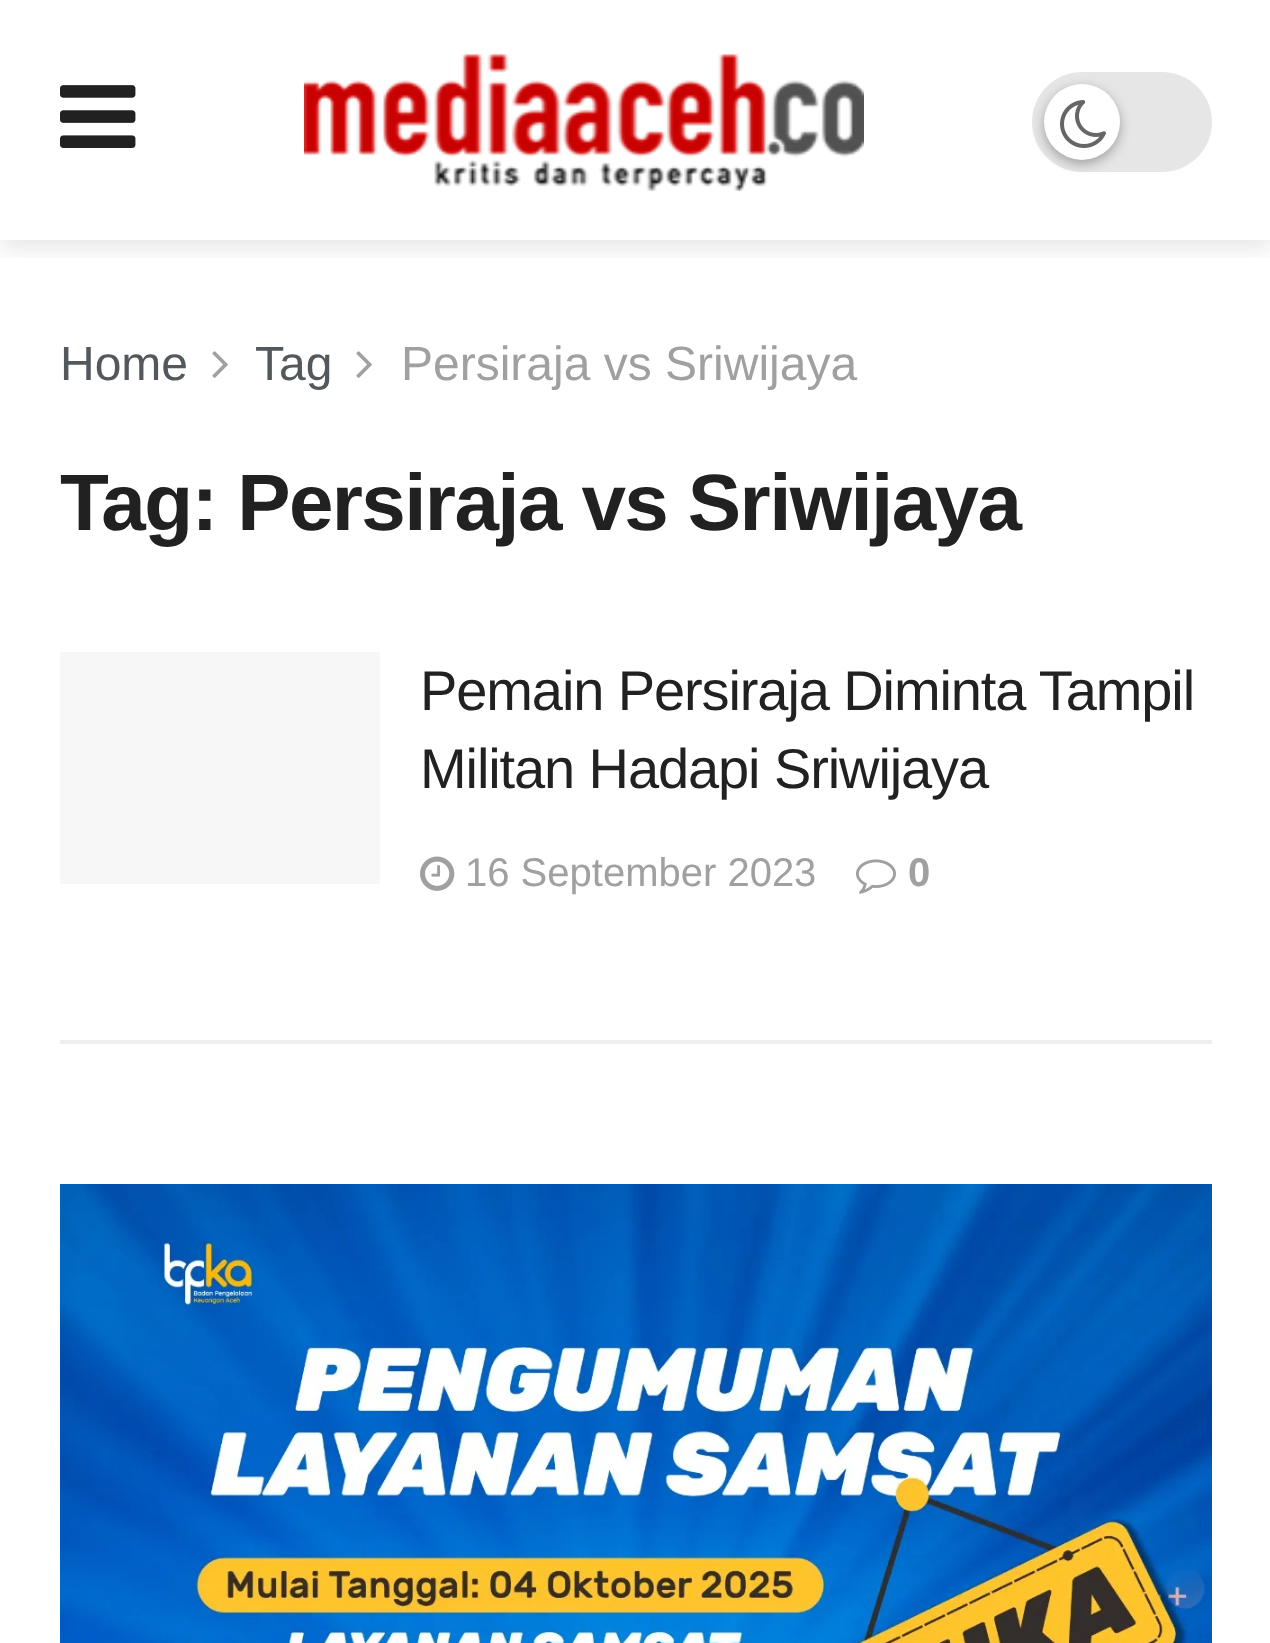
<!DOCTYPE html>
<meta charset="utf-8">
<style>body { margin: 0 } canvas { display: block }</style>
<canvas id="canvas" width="1270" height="1643"></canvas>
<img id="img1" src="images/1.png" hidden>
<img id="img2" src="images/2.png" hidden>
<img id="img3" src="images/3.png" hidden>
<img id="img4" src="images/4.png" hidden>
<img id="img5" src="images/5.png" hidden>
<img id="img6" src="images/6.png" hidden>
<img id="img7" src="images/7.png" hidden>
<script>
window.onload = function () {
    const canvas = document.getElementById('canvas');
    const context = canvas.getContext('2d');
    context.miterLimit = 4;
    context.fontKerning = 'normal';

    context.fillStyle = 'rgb(255, 255, 255)';
    context.fillRect(0, 0, 1270, 1643);
    context.save();
    context.beginPath();
    context.rect(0, 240, 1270, 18);
    context.clip();
    context.fillStyle = 'rgba(0, 0, 0, 0.1)';
    context.filter = 'blur(12px)';
    context.beginPath();
    context.rect(0, 8, 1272, 240);
    context.fill();
    context.filter = 'none';
    context.restore();
    context.drawImage(document.getElementById('img1'), 60, 85, 76, 63);
    context.drawImage(document.getElementById('img2'), 304, 53, 560, 139);
    context.fillStyle = 'rgb(230, 230, 230)';
    context.beginPath();
    context.roundRect(1032, 72, 180, 100, 50);
    context.fill();
    context.fillStyle = 'rgba(0, 0, 0, 0.3)';
    context.filter = 'blur(6px)';
    context.beginPath();
    context.roundRect(1044, 88, 76, 76, 38);
    context.fill();
    context.filter = 'none';
    context.fillStyle = 'rgb(255, 255, 255)';
    context.beginPath();
    context.arc(1082, 122, 38, 0, 2 * Math.PI);
    context.fill();
    context.drawImage(document.getElementById('img3'), 1060, 100, 46, 48);
    context.drawImage(document.getElementById('img4'), 212, 351, 16, 27);
    context.drawImage(document.getElementById('img4'), 356, 351, 16, 27);
    context.fillStyle = 'rgb(238, 238, 238)';
    context.fillRect(60, 1040, 1152, 4);
    context.fillStyle = 'rgb(247, 247, 247)';
    context.fillRect(60, 652, 320, 232);
    context.drawImage(document.getElementById('img5'), 420, 856, 35, 35);
    context.drawImage(document.getElementById('img6'), 856, 859, 40, 35);
    context.drawImage(document.getElementById('img7'), 60, 1184, 1152, 459);
    context.font = '48px Liberation Sans';
    context.fillStyle = 'rgb(83, 88, 92)';
    context.fillText('Home', 60, 380);
    context.fillText('Tag', 255, 380);
    context.fillStyle = 'rgb(160, 160, 160)';
    context.fillText('Persiraja vs Sriwijaya', 401, 380);
    context.letterSpacing = '-1.6px';
    context.font = 'bold 80px Liberation Sans';
    context.fillStyle = 'rgb(33, 33, 33)';
    context.fillText('Tag: Persiraja vs Sriwijaya', 60, 530);
    context.letterSpacing = '-1.1px';
    context.font = '56px Liberation Sans';
    context.fillText('Pemain Persiraja Diminta Tampil', 420, 710);
    context.fillText('Militan Hadapi Sriwijaya', 420, 788);
    context.letterSpacing = '0px';
    context.font = '40px Liberation Sans';
    context.fillStyle = 'rgb(160, 160, 160)';
    context.fillText('16 September 2023', 465, 886);
    context.font = 'bold 40px Liberation Sans';
    context.fillText('0', 908, 886);
};
</script>
